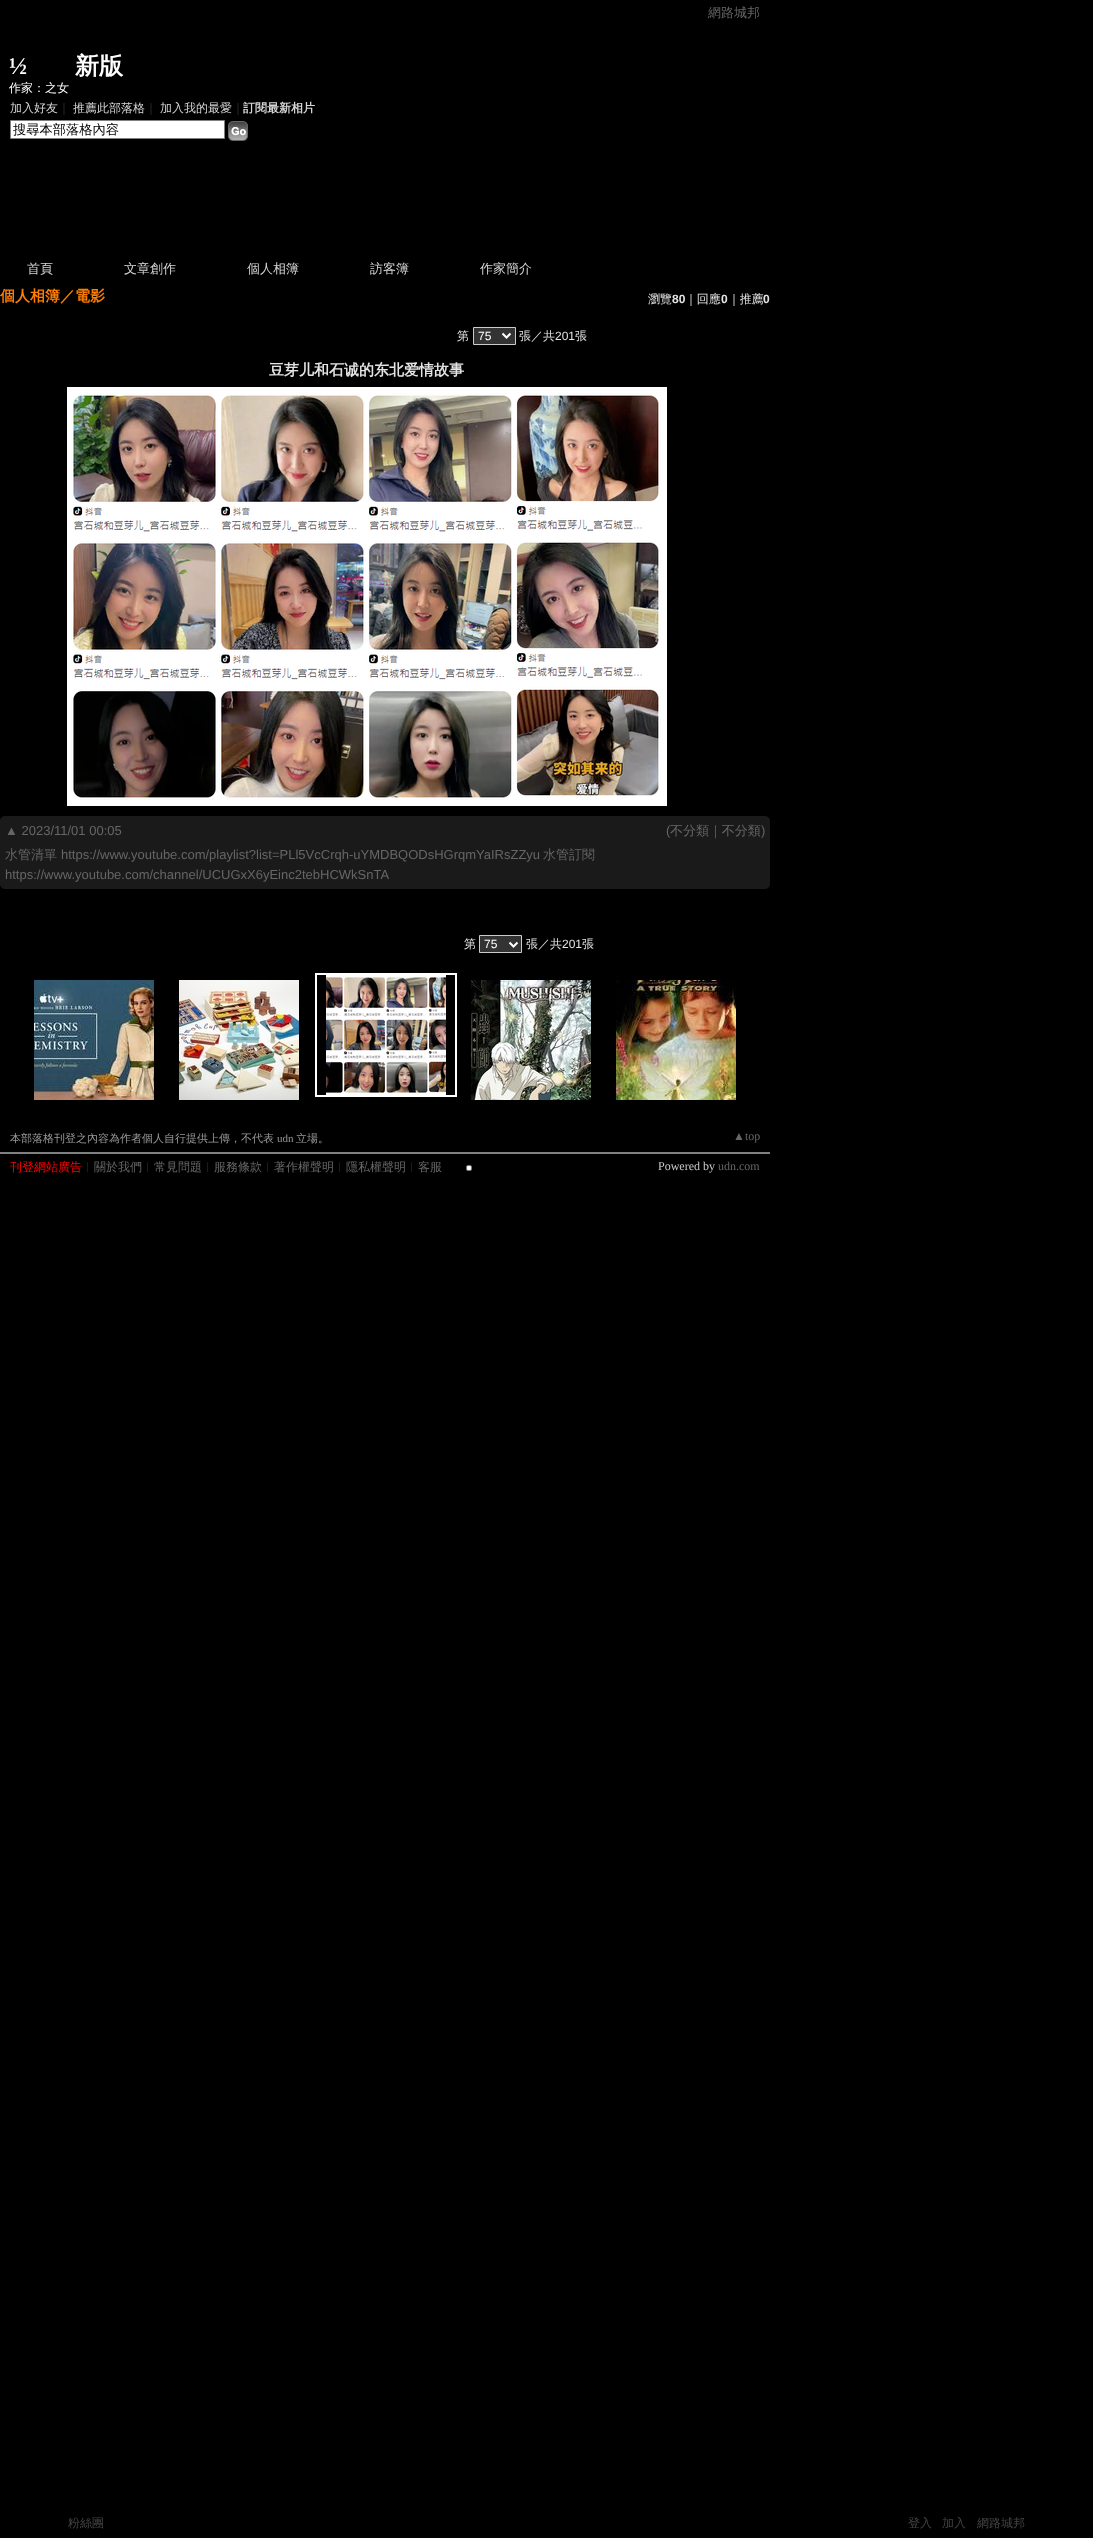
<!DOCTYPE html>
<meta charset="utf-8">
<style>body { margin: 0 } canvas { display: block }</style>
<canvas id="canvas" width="1093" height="2538"></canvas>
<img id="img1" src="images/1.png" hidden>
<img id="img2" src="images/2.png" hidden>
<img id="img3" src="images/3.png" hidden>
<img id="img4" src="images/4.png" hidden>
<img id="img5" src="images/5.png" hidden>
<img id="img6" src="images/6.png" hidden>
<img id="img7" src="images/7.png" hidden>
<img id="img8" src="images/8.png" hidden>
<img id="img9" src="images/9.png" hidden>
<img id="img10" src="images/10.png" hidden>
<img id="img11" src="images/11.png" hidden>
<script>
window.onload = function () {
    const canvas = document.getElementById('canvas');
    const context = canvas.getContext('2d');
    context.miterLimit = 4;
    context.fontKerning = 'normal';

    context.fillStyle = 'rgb(0, 0, 0)';
    context.fillRect(0, 0, 1093, 2538);
    context.fillStyle = 'rgb(255, 255, 255)';
    context.beginPath();
    context.rect(10.5, 120.5, 214, 18);
    context.fill();
    context.strokeStyle = 'rgb(128, 128, 128)';
    context.stroke();
    context.drawImage(document.getElementById('img1'), 228, 121, 20, 20);
    context.fillStyle = 'rgb(51, 51, 51)';
    context.beginPath();
    context.rect(473.5, 327.5, 42, 17);
    context.fill();
    context.strokeStyle = 'rgb(204, 204, 204)';
    context.stroke();
    context.beginPath();
    context.moveTo(502.5, 333.5);
    context.lineTo(506.5, 337.5);
    context.lineTo(510.5, 333.5);
    context.strokeStyle = 'rgb(255, 255, 255)';
    context.lineWidth = 2;
    context.stroke();
    context.drawImage(document.getElementById('img2'), 67, 387, 600, 419);
    context.drawImage(document.getElementById('img3'), 0, 816, 5, 5);
    context.fillStyle = 'rgb(26, 26, 26)';
    context.fillRect(5, 816, 760, 5);
    context.drawImage(document.getElementById('img4'), 765, 816, 5, 5);
    context.fillRect(0, 821, 770, 63);
    context.drawImage(document.getElementById('img5'), 0, 884, 5, 5);
    context.fillRect(5, 884, 760, 5);
    context.drawImage(document.getElementById('img6'), 765, 884, 5, 5);
    context.fillStyle = 'rgb(51, 51, 51)';
    context.beginPath();
    context.rect(479.5, 935.5, 42, 17);
    context.fill();
    context.strokeStyle = 'rgb(204, 204, 204)';
    context.lineWidth = 1;
    context.stroke();
    context.beginPath();
    context.moveTo(509.5, 942.5);
    context.lineTo(513.5, 946.5);
    context.lineTo(517.5, 942.5);
    context.strokeStyle = 'rgb(255, 255, 255)';
    context.lineWidth = 2;
    context.stroke();
    context.drawImage(document.getElementById('img7'), 34, 980, 120, 120);
    context.drawImage(document.getElementById('img8'), 179, 980, 120, 120);
    context.strokeRect(316, 974, 140, 122);
    context.drawImage(document.getElementById('img9'), 326, 975, 120, 120);
    context.drawImage(document.getElementById('img10'), 471, 980, 120, 120);
    context.drawImage(document.getElementById('img11'), 616, 980, 120, 120);
    context.fillStyle = 'rgb(128, 128, 128)';
    context.fillRect(0, 1152, 770, 2);
    context.fillStyle = 'rgb(255, 255, 255)';
    context.beginPath();
    context.roundRect(466.5, 1165.5, 5, 5, 1.5);
    context.fill();
    context.strokeStyle = 'rgb(118, 118, 118)';
    context.lineWidth = 1;
    context.stroke();
    context.font = '500 13px WenQuanYi Zen Hei';
    context.fillStyle = 'rgb(102, 102, 102)';
    context.fillText('網路城邦', 708, 17);
    context.font = 'bold 24px Liberation Serif';
    context.fillStyle = 'rgb(255, 255, 255)';
    context.fillText('½', 9, 74);
    context.font = 'bold 24px WenQuanYi Zen Hei';
    context.fillText('新版', 75, 74);
    context.font = '500 12px WenQuanYi Zen Hei';
    context.fillText('作家：之女', 9, 92);
    context.fillStyle = 'rgb(214, 214, 214)';
    context.fillText('加入好友', 10, 112);
    context.fillStyle = 'rgb(51, 51, 51)';
    context.fillText('｜', 58, 112);
    context.fillStyle = 'rgb(214, 214, 214)';
    context.fillText('推薦此部落格', 73, 112);
    context.fillStyle = 'rgb(51, 51, 51)';
    context.fillText('｜', 145, 112);
    context.fillStyle = 'rgb(214, 214, 214)';
    context.fillText('加入我的最愛', 160, 112);
    context.fillStyle = 'rgb(51, 51, 51)';
    context.fillText('｜', 232, 112);
    context.font = 'bold 12px WenQuanYi Zen Hei';
    context.fillStyle = 'rgb(214, 214, 214)';
    context.fillText('訂閱最新相片', 243, 112);
    context.font = '500 13.25px WenQuanYi Zen Hei';
    context.fillStyle = 'rgb(0, 0, 0)';
    context.fillText('搜尋本部落格內容', 13, 134);
    context.font = '500 13px WenQuanYi Zen Hei';
    context.fillStyle = 'rgb(214, 214, 214)';
    context.fillText('首頁', 27, 273);
    context.fillText('文章創作', 124, 273);
    context.fillText('個人相簿', 247, 273);
    context.fillText('訪客簿', 370, 273);
    context.fillText('作家簡介', 480, 273);
    context.font = 'bold 15px WenQuanYi Zen Hei';
    context.fillStyle = 'rgb(255, 126, 0)';
    context.fillText('個人相簿／電影', 0, 301);
    context.font = '500 12px WenQuanYi Zen Hei';
    context.fillStyle = 'rgb(228, 228, 228)';
    context.fillText('瀏覽', 648, 303);
    context.font = 'bold 12px Liberation Sans';
    context.fillText('80', 672, 303);
    context.font = '500 12px WenQuanYi Zen Hei';
    context.fillText('｜回應', 685, 303);
    context.font = 'bold 12px Liberation Sans';
    context.fillText('0', 721, 303);
    context.font = '500 12px WenQuanYi Zen Hei';
    context.fillText('｜推薦', 728, 303);
    context.font = 'bold 12px Liberation Sans';
    context.fillText('0', 763, 303);
    context.font = '500 12px WenQuanYi Zen Hei';
    context.fillText('第', 457, 340);
    context.font = '12px Liberation Sans';
    context.fillStyle = 'rgb(255, 255, 255)';
    context.fillText('75', 478, 340);
    context.font = '500 12px WenQuanYi Zen Hei';
    context.fillStyle = 'rgb(228, 228, 228)';
    context.fillText('張／共', 519, 340);
    context.font = '12px Liberation Sans';
    context.fillText('201', 555, 340);
    context.font = '500 12px WenQuanYi Zen Hei';
    context.fillText('張', 575, 340);
    context.font = 'bold 15px WenQuanYi Zen Hei';
    context.fillText('豆芽儿和石诚的东北爱情故事', 269, 375);
    context.font = '13px Liberation Sans';
    context.fillStyle = 'rgb(102, 102, 102)';
    context.fillText('▲ 2023/11/01 00:05', 5, 835);
    context.fillText('(', 666, 835);
    context.font = '500 13px WenQuanYi Zen Hei';
    context.fillText('不分類｜不分類', 670, 835);
    context.font = '13px Liberation Sans';
    context.fillText(')', 761, 835);
    context.font = '500 13px WenQuanYi Zen Hei';
    context.fillText('水管清單', 5, 859);
    context.font = '13px Liberation Sans';
    context.fillText('https://www.youtube.com/playlist?list=PLl5VcCrqh-uYMDBQODsHGrqmYaIRsZZyu', 61, 859);
    context.font = '500 13px WenQuanYi Zen Hei';
    context.fillText('水管訂閱', 543, 859);
    context.font = '13px Liberation Sans';
    context.fillText('https://www.youtube.com/channel/UCUGxX6yEinc2tebHCWkSnTA', 5, 879);
    context.font = '500 12px WenQuanYi Zen Hei';
    context.fillStyle = 'rgb(228, 228, 228)';
    context.fillText('第', 464, 948);
    context.font = '12px Liberation Sans';
    context.fillStyle = 'rgb(255, 255, 255)';
    context.fillText('75', 484, 948);
    context.font = '500 12px WenQuanYi Zen Hei';
    context.fillStyle = 'rgb(228, 228, 228)';
    context.fillText('張／共', 526, 948);
    context.font = '12px Liberation Sans';
    context.fillText('201', 562, 948);
    context.font = '500 12px WenQuanYi Zen Hei';
    context.fillText('張', 582, 948);
    context.font = '500 11px WenQuanYi Zen Hei';
    context.fillStyle = 'rgb(153, 153, 153)';
    context.fillText('本部落格刊登之內容為作者個人自行提供上傳，不代表', 10, 1142);
    context.font = '11px Liberation Serif';
    context.fillText('udn', 277, 1142);
    context.font = '500 11px WenQuanYi Zen Hei';
    context.fillText('立場。', 296, 1142);
    context.font = '12px Liberation Serif';
    context.fillStyle = 'rgb(102, 102, 102)';
    context.fillText('▲top', 733, 1140);
    context.font = '500 12px WenQuanYi Zen Hei';
    context.fillStyle = 'rgb(255, 0, 0)';
    context.fillText('刊登網站廣告', 10, 1171);
    context.fillStyle = 'rgb(51, 51, 51)';
    context.fillText('︱', 82, 1171);
    context.fillStyle = 'rgb(102, 102, 102)';
    context.fillText('關於我們', 94, 1171);
    context.fillStyle = 'rgb(51, 51, 51)';
    context.fillText('︱', 142, 1171);
    context.fillStyle = 'rgb(102, 102, 102)';
    context.fillText('常見問題', 154, 1171);
    context.fillStyle = 'rgb(51, 51, 51)';
    context.fillText('︱', 202, 1171);
    context.fillStyle = 'rgb(102, 102, 102)';
    context.fillText('服務條款', 214, 1171);
    context.fillStyle = 'rgb(51, 51, 51)';
    context.fillText('︱', 262, 1171);
    context.fillStyle = 'rgb(102, 102, 102)';
    context.fillText('著作權聲明', 274, 1171);
    context.fillStyle = 'rgb(51, 51, 51)';
    context.fillText('︱', 334, 1171);
    context.fillStyle = 'rgb(102, 102, 102)';
    context.fillText('隱私權聲明', 346, 1171);
    context.fillStyle = 'rgb(51, 51, 51)';
    context.fillText('︱', 406, 1171);
    context.fillStyle = 'rgb(102, 102, 102)';
    context.fillText('客服', 418, 1171);
    context.font = '12px Liberation Serif';
    context.fillStyle = 'rgb(204, 204, 204)';
    context.fillText('Powered by', 658, 1170);
    context.fillStyle = 'rgb(102, 102, 102)';
    context.fillText('udn.com', 718, 1170);
    context.font = '500 12px WenQuanYi Zen Hei';
    context.fillStyle = 'rgb(68, 68, 68)';
    context.fillText('粉絲團', 68, 2527);
    context.fillText('登入', 908, 2527);
    context.fillText('加入', 942, 2527);
    context.fillText('網路城邦', 977, 2527);
};
</script>
